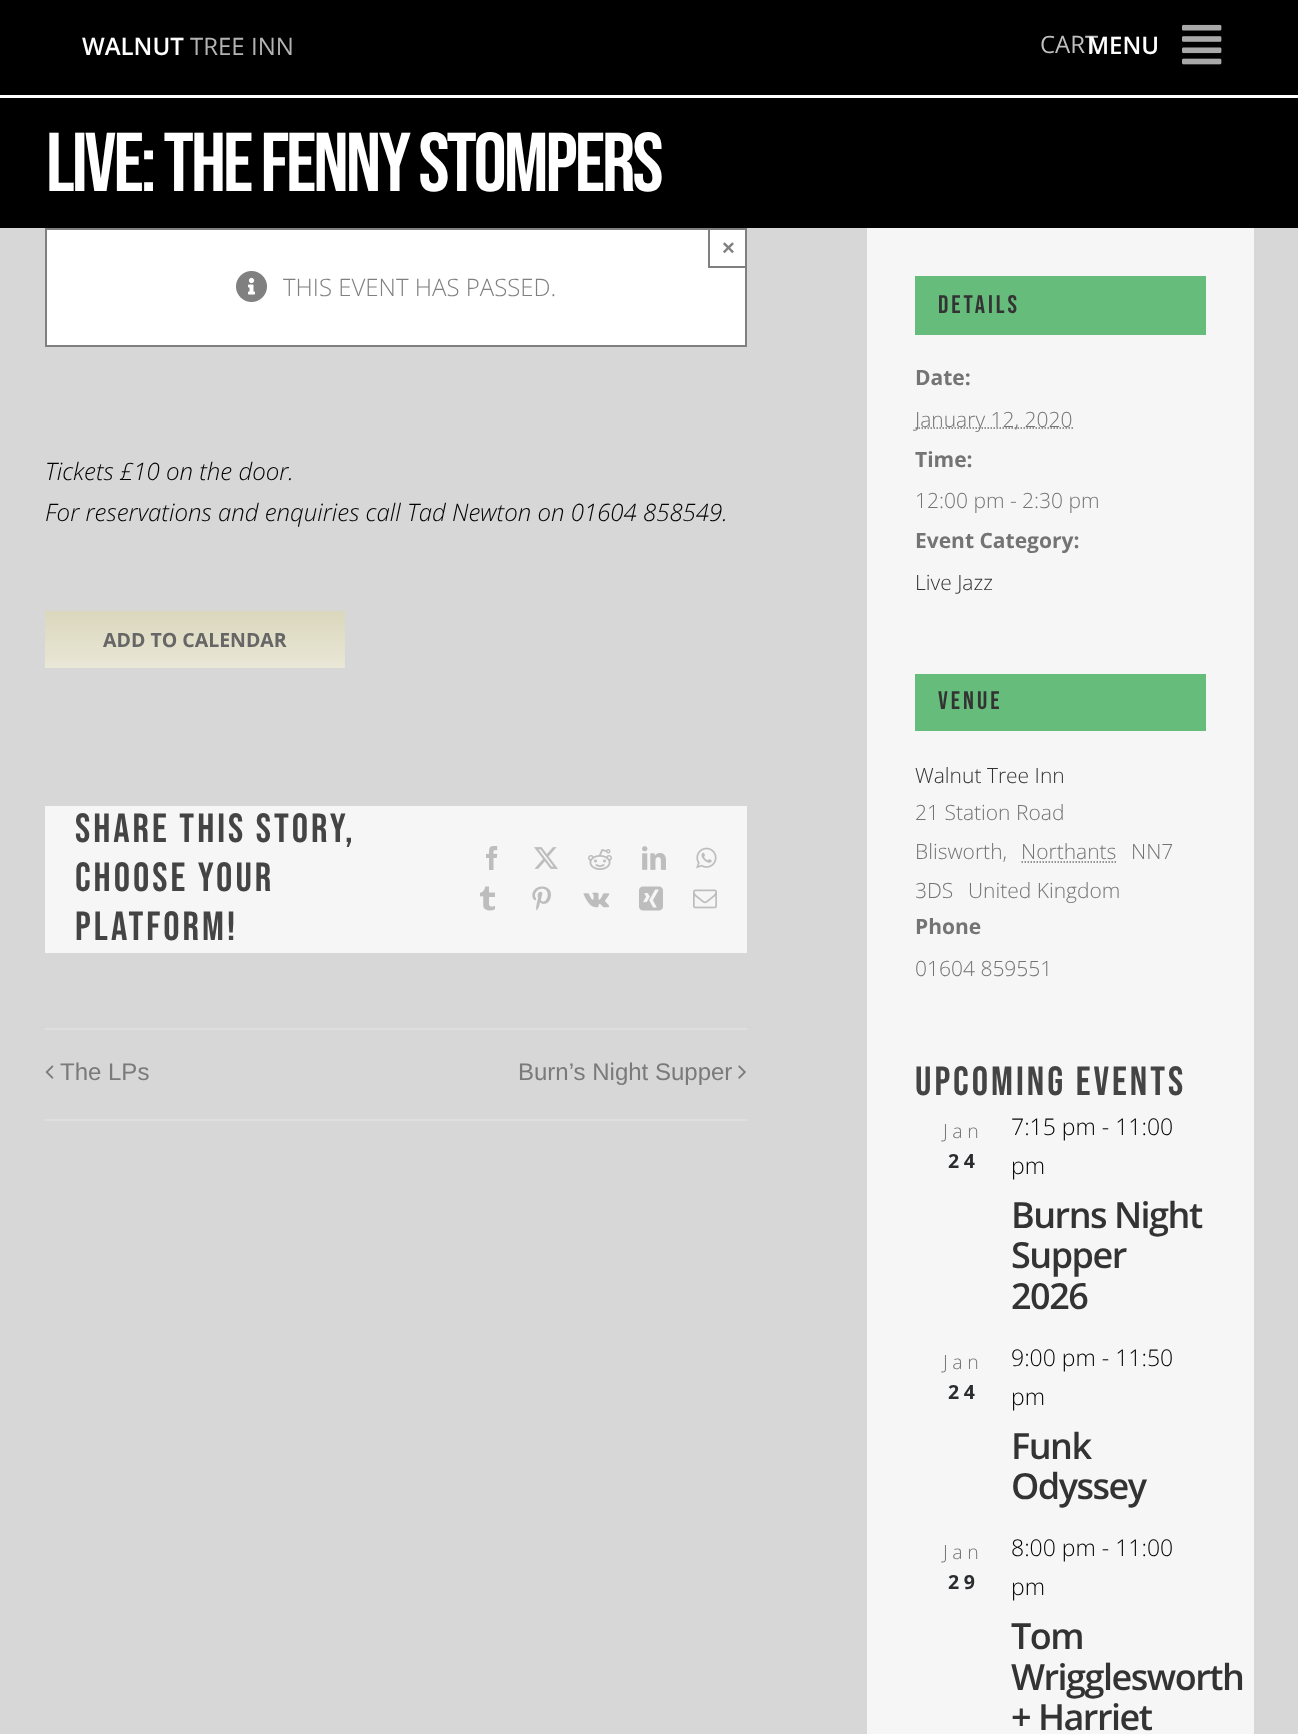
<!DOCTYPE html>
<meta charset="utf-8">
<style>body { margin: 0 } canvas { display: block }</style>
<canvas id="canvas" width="1298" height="1734"></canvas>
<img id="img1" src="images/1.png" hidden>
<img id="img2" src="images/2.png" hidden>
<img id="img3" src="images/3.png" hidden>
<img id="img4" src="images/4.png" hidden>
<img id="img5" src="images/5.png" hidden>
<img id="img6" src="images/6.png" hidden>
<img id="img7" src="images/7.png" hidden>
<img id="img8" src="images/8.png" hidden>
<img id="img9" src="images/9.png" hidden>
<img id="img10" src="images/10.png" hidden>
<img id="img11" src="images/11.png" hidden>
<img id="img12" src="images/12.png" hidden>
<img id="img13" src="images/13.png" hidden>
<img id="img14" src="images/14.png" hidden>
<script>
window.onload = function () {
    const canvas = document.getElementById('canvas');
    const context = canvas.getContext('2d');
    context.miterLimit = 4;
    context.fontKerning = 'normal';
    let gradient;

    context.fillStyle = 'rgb(215, 215, 215)';
    context.fillRect(0, 0, 1298, 1734);
    context.fillStyle = 'rgb(0, 0, 0)';
    context.fillRect(0, 0, 1298, 95);
    context.drawImage(document.getElementById('img1'), 1182, 24, 40, 41);
    context.fillStyle = 'rgb(255, 255, 255)';
    context.fillRect(0, 95, 1298, 3);
    context.fillStyle = 'rgb(0, 0, 0)';
    context.fillRect(0, 98, 1298, 130);
    context.fillStyle = 'rgb(255, 255, 255)';
    context.beginPath();
    context.rect(46, 229, 700, 117);
    context.fill();
    context.strokeStyle = 'rgb(128, 128, 128)';
    context.lineWidth = 2;
    context.stroke();
    context.fillStyle = 'rgb(128, 128, 128)';
    context.fillRect(708, 266, 39, 2);
    context.fillRect(708, 228, 2, 39);
    context.drawImage(document.getElementById('img2'), 236, 271, 31, 31);
    gradient = context.createLinearGradient(195, 611, 195, 668);
    gradient.addColorStop(0, 'rgb(219, 215, 189)');
    gradient.addColorStop(1, 'rgb(233, 231, 214)');
    context.fillStyle = gradient;
    context.fillRect(45, 611, 300, 57);
    context.fillStyle = 'rgb(246, 246, 246)';
    context.fillRect(45, 806, 702, 147);
    context.drawImage(document.getElementById('img3'), 486, 846, 12, 24);
    context.drawImage(document.getElementById('img4'), 534, 847, 24, 22);
    context.drawImage(document.getElementById('img5'), 588, 849, 24, 21);
    context.drawImage(document.getElementById('img6'), 642, 846, 24, 24);
    context.drawImage(document.getElementById('img7'), 696, 847, 21, 22);
    context.drawImage(document.getElementById('img8'), 480, 886, 15, 25);
    context.drawImage(document.getElementById('img9'), 532, 886, 19, 25);
    context.drawImage(document.getElementById('img10'), 583, 892, 27, 16);
    context.drawImage(document.getElementById('img11'), 639, 886, 24, 25);
    context.drawImage(document.getElementById('img12'), 693, 889, 24, 20);
    context.fillStyle = 'rgb(224, 222, 222)';
    context.fillRect(45, 1028, 702, 2);
    context.fillRect(45, 1119, 702, 2);
    context.drawImage(document.getElementById('img13'), 45, 1065, 9, 14);
    context.drawImage(document.getElementById('img14'), 738, 1065, 8, 14);
    context.fillStyle = 'rgb(246, 246, 246)';
    context.fillRect(867, 228, 387, 1506);
    context.fillStyle = 'rgb(101, 188, 123)';
    context.fillRect(915, 276, 291, 59);
    context.beginPath();
    context.moveTo(915.5, 428);
    context.lineTo(1073, 428);
    context.strokeStyle = 'rgb(116, 116, 116)';
    context.lineWidth = 1.5;
    context.setLineDash([1.5, 1.5]);
    context.stroke();
    context.fillRect(915, 674, 291, 57);
    context.beginPath();
    context.moveTo(1021.5, 862);
    context.lineTo(1117, 862);
    context.stroke();
    context.font = '600 24px Open Sans';
    context.fillStyle = 'rgb(255, 255, 255)';
    context.fillText('WALNUT', 82, 55);
    context.font = '24px Open Sans';
    context.fillStyle = 'rgb(179, 179, 179)';
    context.fillText('TREE INN', 190, 55);
    context.fillStyle = 'rgb(191, 191, 191)';
    context.fillText('CART', 1040, 53);
    context.font = '600 24px Open Sans';
    context.fillStyle = 'rgb(255, 255, 255)';
    context.fillText('MENU', 1087, 54);
    context.letterSpacing = '-3px';
    context.font = '83.25px Bebas Neue';
    context.fillText('LIVE: The Fenny Stompers', 46, 191);
    context.letterSpacing = '0px';
    context.font = 'bold 22px Liberation Sans';
    context.fillStyle = 'rgb(128, 128, 128)';
    context.fillText('×', 722, 255);
    context.font = '300 24px Open Sans';
    context.fillText('THIS EVENT HAS PASSED.', 283, 296);
    context.font = 'italic 300 24px Open Sans';
    context.fillStyle = 'rgb(0, 0, 0)';
    context.fillText('Tickets £10 on the door.', 45, 480);
    context.fillText('For reservations and enquiries call Tad Newton on 01604 858549.', 45, 521);
    context.font = 'bold 19.5px Open Sans';
    context.fillStyle = 'rgb(102, 102, 102)';
    context.fillText('ADD TO CALENDAR', 103, 647);
    context.letterSpacing = '3px';
    context.font = '40.75px Bebas Neue';
    context.fillStyle = 'rgb(68, 68, 68)';
    context.fillText('Share This Story,', 75, 842);
    context.fillText('Choose Your', 75, 891);
    context.fillText('Platform!', 75, 940);
    context.letterSpacing = '0px';
    context.font = '24px Liberation Sans';
    context.fillStyle = 'rgb(122, 122, 122)';
    context.fillText('The LPs', 60, 1080);
    context.fillText('Burn’s Night Supper', 518, 1080);
    context.letterSpacing = '3px';
    context.font = '25.5px Bebas Neue';
    context.fillStyle = 'rgb(51, 51, 51)';
    context.fillText('Details', 938, 313);
    context.letterSpacing = '0px';
    context.font = 'bold 21px Open Sans';
    context.fillStyle = 'rgb(116, 116, 116)';
    context.fillText('Date:', 915, 385);
    context.font = '300 21px Open Sans';
    context.fillText('January 12, 2020', 915, 427);
    context.font = 'bold 21px Open Sans';
    context.fillText('Time:', 915, 467);
    context.font = '300 21px Open Sans';
    context.fillText('12:00 pm - 2:30 pm', 915, 508);
    context.font = 'bold 21px Open Sans';
    context.fillText('Event Category:', 915, 548);
    context.font = '300 21px Open Sans';
    context.fillStyle = 'rgb(51, 51, 51)';
    context.fillText('Live Jazz', 915, 590);
    context.letterSpacing = '3px';
    context.font = '25.5px Bebas Neue';
    context.fillText('Venue', 938, 709);
    context.letterSpacing = '0px';
    context.font = '300 21px Open Sans';
    context.fillText('Walnut Tree Inn', 915, 783);
    context.fillStyle = 'rgb(116, 116, 116)';
    context.fillText('21 Station Road', 915, 820);
    context.fillText('Blisworth,', 915, 859);
    context.fillText('Northants', 1021, 859);
    context.fillText('NN7', 1131, 859);
    context.fillText('3DS', 915, 898);
    context.fillText('United Kingdom', 968, 898);
    context.font = 'bold 21px Open Sans';
    context.fillText('Phone', 915, 934);
    context.font = '300 21px Open Sans';
    context.fillText('01604 859551', 915, 976);
    context.letterSpacing = '3px';
    context.font = '40.75px Bebas Neue';
    context.fillStyle = 'rgb(68, 68, 68)';
    context.fillText('upcoming events', 915, 1095);
    context.letterSpacing = '4.5px';
    context.font = '300 19.5px Open Sans';
    context.fillStyle = 'rgb(116, 116, 116)';
    context.fillText('Jan', 943, 1138);
    context.font = 'bold 19.5px Open Sans';
    context.fillStyle = 'rgb(42, 44, 48)';
    context.fillText('24', 948, 1168);
    context.letterSpacing = '0px';
    context.font = '300 23px Open Sans';
    context.fillStyle = 'rgb(0, 0, 0)';
    context.fillText('7:15 pm - 11:00', 1011, 1135);
    context.fillText('pm', 1011, 1174);
    context.letterSpacing = '-1.5px';
    context.font = '600 36px Open Sans';
    context.fillStyle = 'rgb(51, 51, 51)';
    context.fillText('Burns Night', 1011, 1228);
    context.fillText('Supper', 1011, 1268);
    context.fillText('2026', 1011, 1309);
    context.letterSpacing = '4.5px';
    context.font = '300 19.5px Open Sans';
    context.fillStyle = 'rgb(116, 116, 116)';
    context.fillText('Jan', 943, 1369);
    context.font = 'bold 19.5px Open Sans';
    context.fillStyle = 'rgb(42, 44, 48)';
    context.fillText('24', 948, 1399);
    context.letterSpacing = '0px';
    context.font = '300 23px Open Sans';
    context.fillStyle = 'rgb(0, 0, 0)';
    context.fillText('9:00 pm - 11:50', 1011, 1366);
    context.fillText('pm', 1011, 1405);
    context.letterSpacing = '-1.5px';
    context.font = '600 36px Open Sans';
    context.fillStyle = 'rgb(51, 51, 51)';
    context.fillText('Funk', 1011, 1459);
    context.fillText('Odyssey', 1011, 1499);
    context.letterSpacing = '4.5px';
    context.font = '300 19.5px Open Sans';
    context.fillStyle = 'rgb(116, 116, 116)';
    context.fillText('Jan', 943, 1559);
    context.font = 'bold 19.5px Open Sans';
    context.fillStyle = 'rgb(42, 44, 48)';
    context.fillText('29', 948, 1589);
    context.letterSpacing = '0px';
    context.font = '300 23px Open Sans';
    context.fillStyle = 'rgb(0, 0, 0)';
    context.fillText('8:00 pm - 11:00', 1011, 1556);
    context.fillText('pm', 1011, 1595);
    context.letterSpacing = '-1.5px';
    context.font = '600 36px Open Sans';
    context.fillStyle = 'rgb(51, 51, 51)';
    context.fillText('Tom', 1011, 1649);
    context.fillText('Wrigglesworth', 1011, 1690);
    context.fillText('+ Harriet', 1011, 1730);
};
</script>
